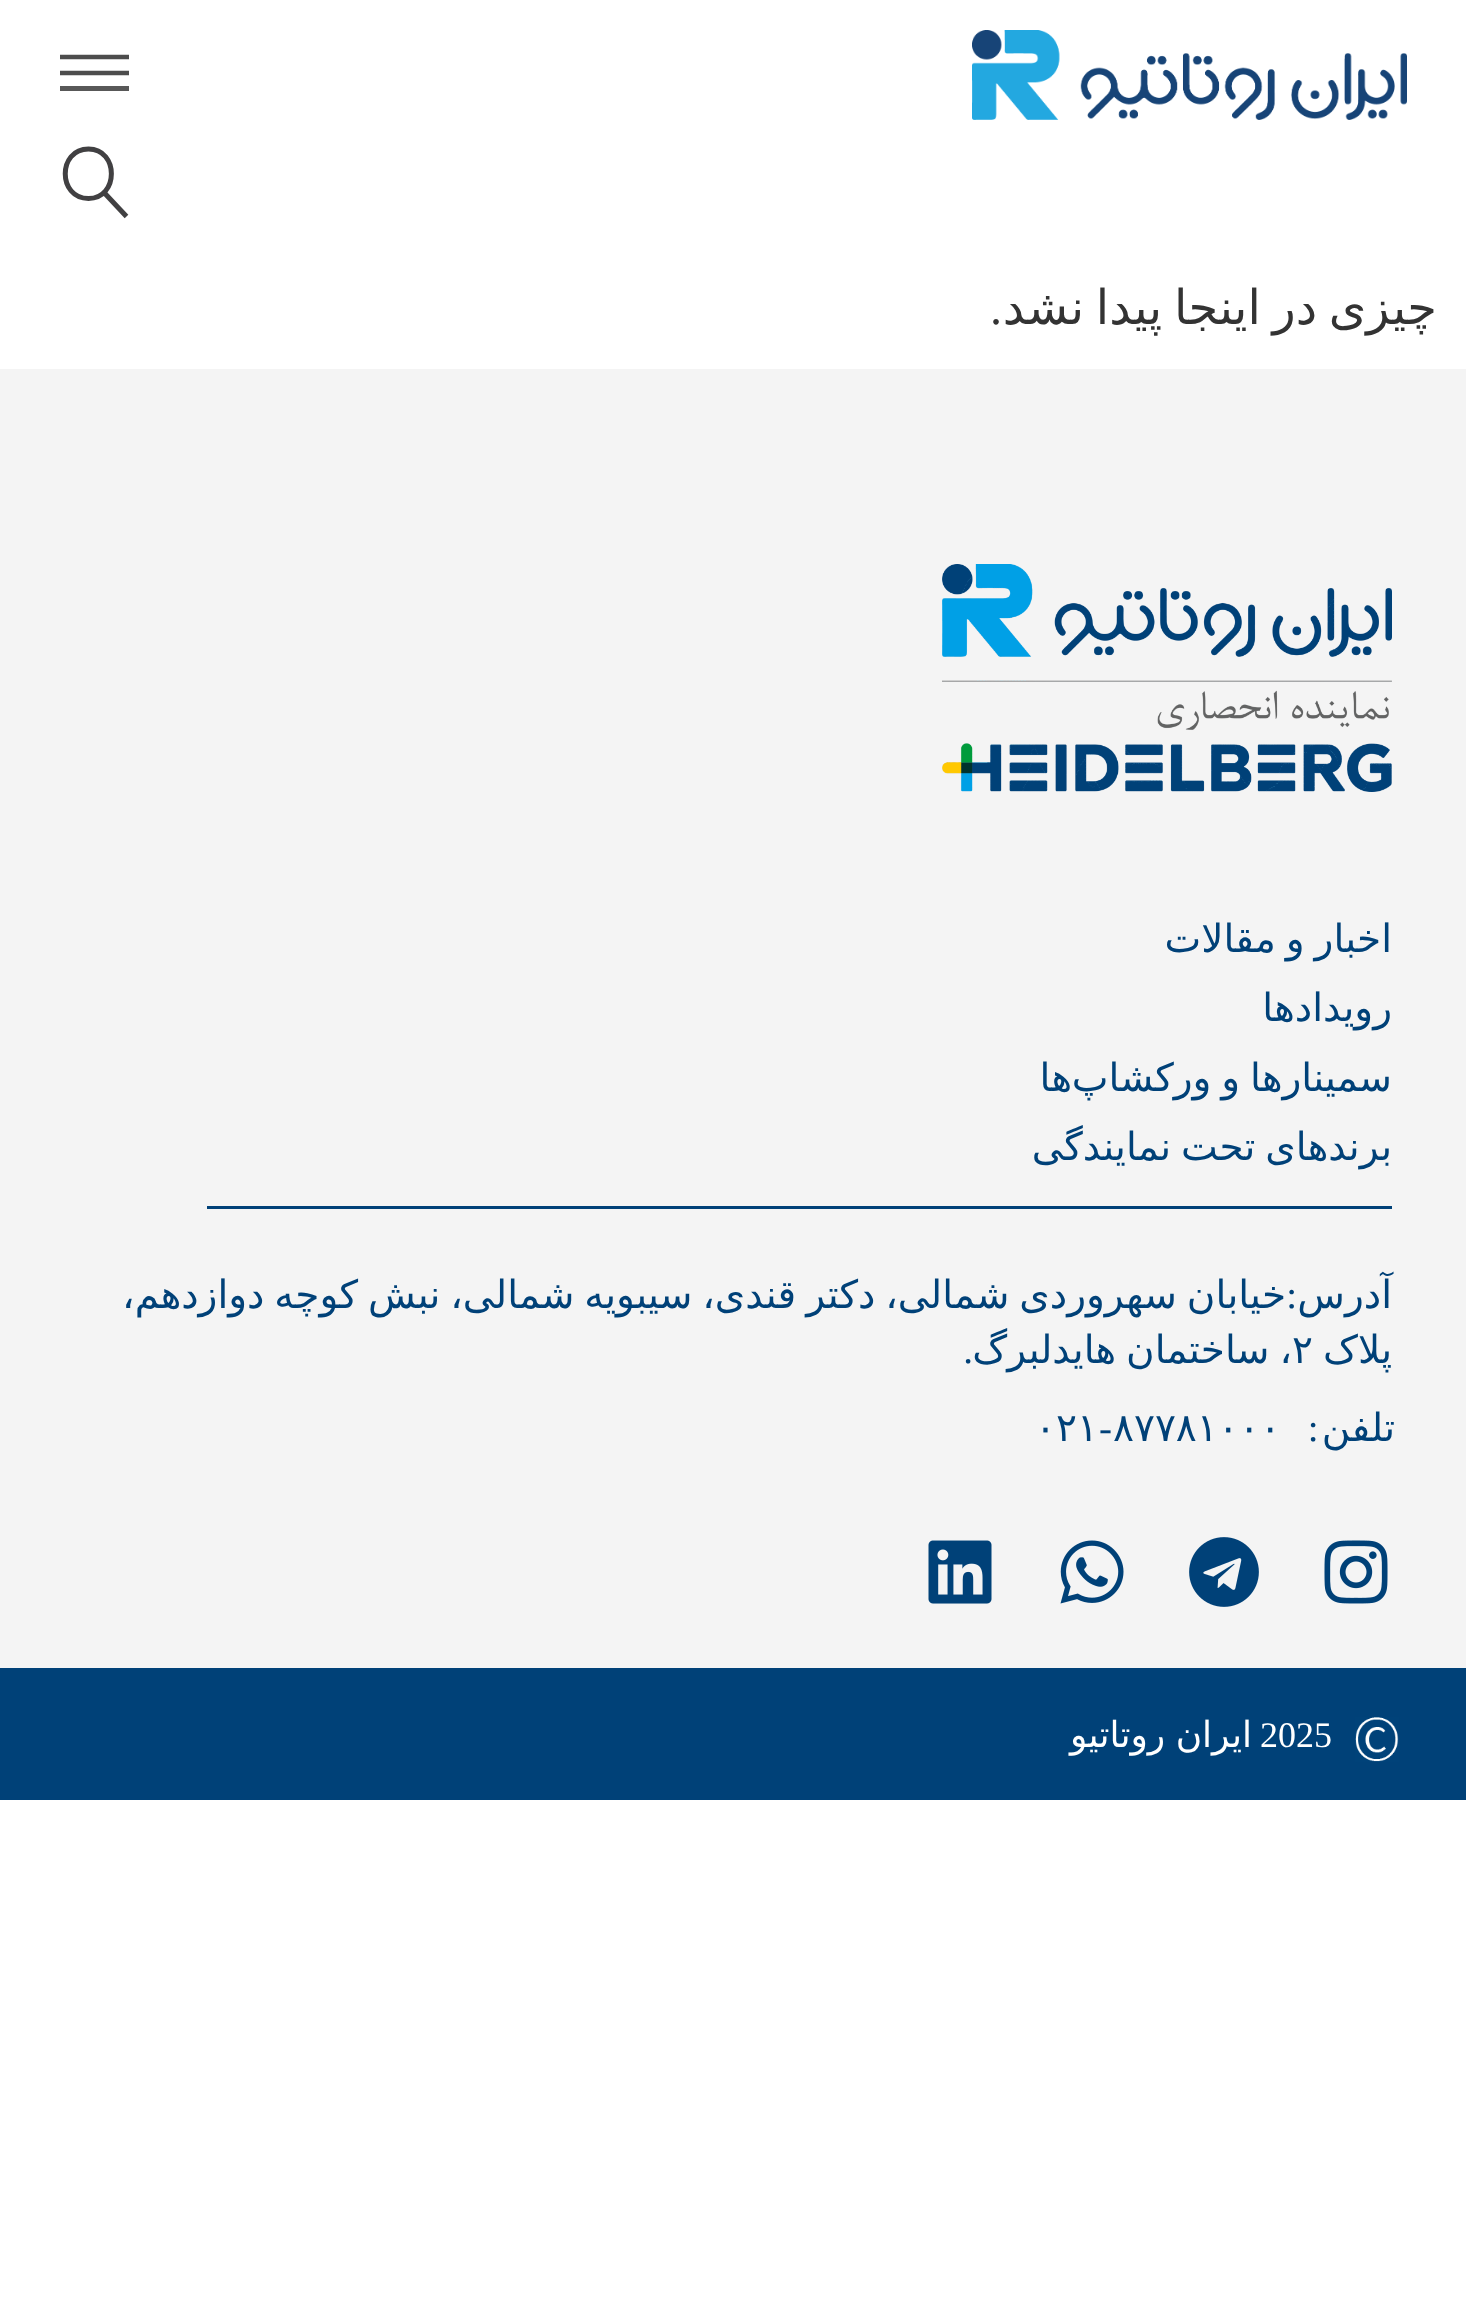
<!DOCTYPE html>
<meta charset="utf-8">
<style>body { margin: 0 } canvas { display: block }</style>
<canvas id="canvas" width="1466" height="2306"></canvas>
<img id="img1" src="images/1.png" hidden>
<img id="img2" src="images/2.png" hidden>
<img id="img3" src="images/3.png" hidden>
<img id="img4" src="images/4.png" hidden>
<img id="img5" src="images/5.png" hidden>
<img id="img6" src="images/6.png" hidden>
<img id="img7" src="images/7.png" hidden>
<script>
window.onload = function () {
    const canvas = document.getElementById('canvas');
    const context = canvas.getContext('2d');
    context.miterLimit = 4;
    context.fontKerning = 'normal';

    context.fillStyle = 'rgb(255, 255, 255)';
    context.fillRect(0, 0, 1466, 2306);
    context.drawImage(document.getElementById('img1'), 972, 30, 435, 90);
    context.fillStyle = 'rgb(88, 88, 88)';
    context.fillRect(60, 86, 69, 5);
    context.beginPath();
    context.moveTo(60, 73);
    context.lineTo(129, 73);
    context.strokeStyle = 'rgb(77, 77, 77)';
    context.lineWidth = 4.7;
    context.stroke();
    context.beginPath();
    context.moveTo(60, 57);
    context.lineTo(129, 57);
    context.stroke();
    context.beginPath();
    context.moveTo(88.5, 198.5);
    context.bezierCurveTo(119, 198.5, 119, 149, 88.5, 149);
    context.bezierCurveTo(57.5, 149, 57.5, 198.5, 88.5, 198.5);
    context.closePath();
    context.strokeStyle = 'rgb(65, 64, 66)';
    context.lineWidth = 5;
    context.stroke();
    context.beginPath();
    context.moveTo(104, 192.5);
    context.lineTo(126.5, 216.5);
    context.stroke();
    context.fillStyle = 'rgb(244, 244, 244)';
    context.fillRect(0, 369, 1466, 1299);
    context.drawImage(document.getElementById('img2'), 942, 564, 450, 228);
    context.fillStyle = 'rgb(0, 65, 120)';
    context.fillRect(207, 1206, 1185, 3);
    context.drawImage(document.getElementById('img3'), 1324, 1540, 64, 64);
    context.drawImage(document.getElementById('img4'), 1189, 1537, 70, 70);
    context.drawImage(document.getElementById('img5'), 1060, 1540, 64, 64);
    context.drawImage(document.getElementById('img6'), 928, 1540, 64, 64);
    context.fillRect(0, 1668, 1466, 132);
    context.drawImage(document.getElementById('img7'), 1355, 1717, 44, 45);
    context.wordSpacing = '-3.5px';
    context.direction = 'rtl';
    context.font = '48px DejaVu Sans';
    context.fillStyle = 'rgb(51, 51, 51)';
    context.fillText('چیزی در اینجا پیدا نشد', 1437, 324);
    context.wordSpacing = '0px';
    context.font = '48px Liberation Serif';
    context.fillText('.', 1002, 324);
    context.wordSpacing = '-2.5px';
    context.font = '39px DejaVu Sans';
    context.fillStyle = 'rgb(0, 65, 120)';
    context.fillText('اخبار و مقالات', 1392, 952);
    context.wordSpacing = '0px';
    context.fillText('رویدادها', 1392, 1021);
    context.wordSpacing = '-2.5px';
    context.fillText('سمینارها و ورکشاپ', 1392, 1091);
    context.wordSpacing = '0px';
    context.fillText('ها', 1072, 1091);
    context.wordSpacing = '-2.5px';
    context.fillText('برندهای تحت نمایندگی', 1392, 1160);
    context.wordSpacing = '0px';
    context.fillText('آدرس', 1392, 1308);
    context.font = '39px Liberation Serif';
    context.fillText(':', 1297, 1308);
    context.wordSpacing = '-2.5px';
    context.font = '39px DejaVu Sans';
    context.fillText('خیابان سهروردی شمالی، دکتر قندی، سیبویه شمالی، نبش کوچه دوازدهم،', 1286, 1308);
    context.wordSpacing = '0px';
    context.fillText('پلاک', 1392, 1363);
    context.direction = 'ltr';
    context.fillText('۲', 1292, 1363);
    context.wordSpacing = '-2.5px';
    context.direction = 'rtl';
    context.fillText('، ساختمان هایدلبرگ', 1292, 1363);
    context.wordSpacing = '0px';
    context.font = '39px Liberation Serif';
    context.fillText('.', 973, 1363);
    context.letterSpacing = '0.5px';
    context.font = '39px DejaVu Sans';
    context.fillText('تلفن', 1395, 1441);
    context.font = '39px Liberation Serif';
    context.fillText(':', 1319, 1441);
    context.direction = 'ltr';
    context.font = '39px DejaVu Sans';
    context.fillText('۸۷۷۸۱۰۰۰', 1113, 1441);
    context.font = '39px Liberation Serif';
    context.fillText('-', 1099, 1441);
    context.font = '39px DejaVu Sans';
    context.fillText('۰۲۱', 1035, 1441);
    context.letterSpacing = '0px';
    context.font = '36px Liberation Serif';
    context.fillStyle = 'rgb(255, 255, 255)';
    context.fillText('2025', 1260, 1747);
    context.wordSpacing = '-1px';
    context.direction = 'rtl';
    context.font = '36px DejaVu Sans';
    context.fillText('ایران روتاتیو', 1252, 1747);
};
</script>
